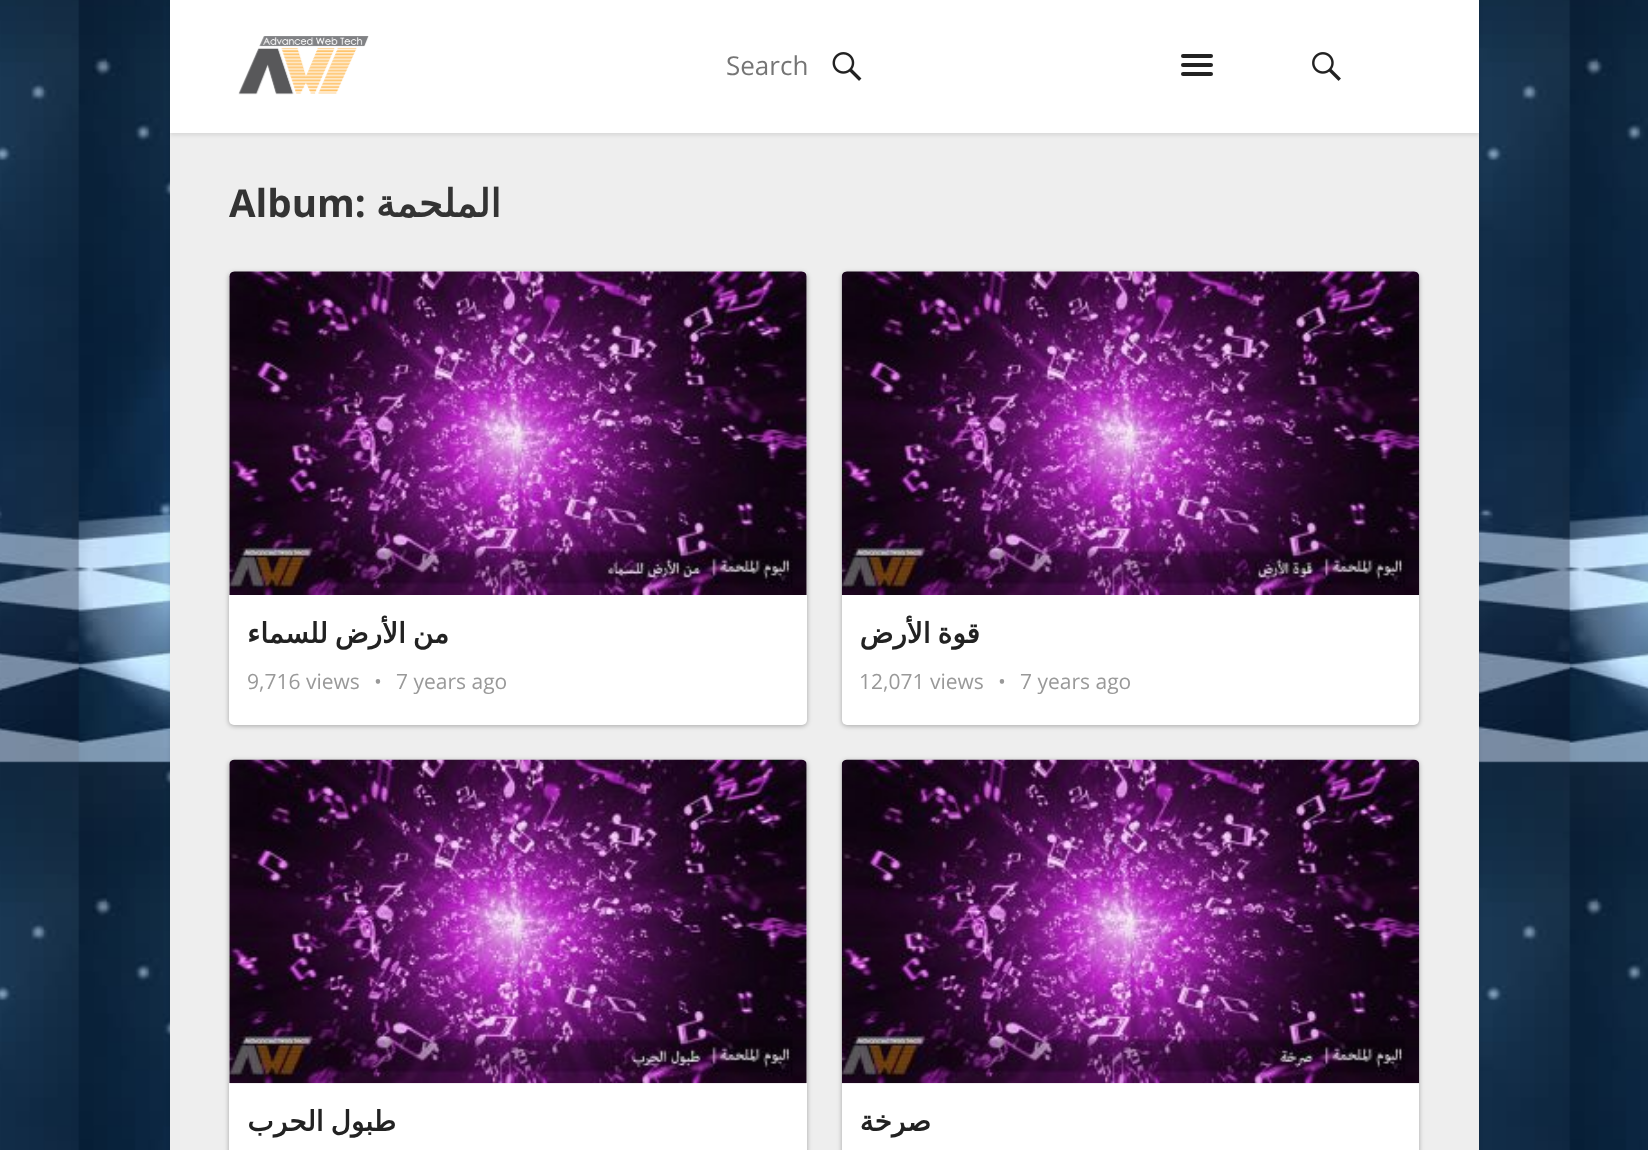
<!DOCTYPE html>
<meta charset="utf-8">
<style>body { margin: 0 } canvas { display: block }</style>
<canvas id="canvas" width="1648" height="1150"></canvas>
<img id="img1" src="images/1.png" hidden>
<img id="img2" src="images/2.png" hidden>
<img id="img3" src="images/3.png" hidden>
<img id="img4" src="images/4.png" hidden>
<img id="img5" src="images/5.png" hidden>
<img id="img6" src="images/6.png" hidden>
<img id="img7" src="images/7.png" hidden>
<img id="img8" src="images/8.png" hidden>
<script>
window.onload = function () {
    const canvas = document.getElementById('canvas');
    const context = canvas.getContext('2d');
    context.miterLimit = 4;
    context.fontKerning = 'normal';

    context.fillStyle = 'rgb(255, 255, 255)';
    context.fillRect(0, 0, 1648, 1150);
    context.drawImage(document.getElementById('img1'), 0, 0, 1648, 1150);
    context.fillStyle = 'rgba(0, 0, 0, 0.1)';
    context.filter = 'blur(2px)';
    context.beginPath();
    context.rect(170, 135, 1309, 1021);
    context.fill();
    context.filter = 'none';
    context.fillStyle = 'rgb(238, 238, 238)';
    context.fillRect(170, 133, 1309, 1017);
    context.fillStyle = 'rgba(0, 0, 0, 0.1)';
    context.filter = 'blur(2px)';
    context.beginPath();
    context.rect(170, 2, 1309, 133);
    context.fill();
    context.filter = 'none';
    context.fillStyle = 'rgb(255, 255, 255)';
    context.fillRect(170, 0, 1309, 133);
    context.drawImage(document.getElementById('img2'), 238, 36, 131, 59);
    context.drawImage(document.getElementById('img3'), 832, 52, 30, 29);
    context.fillStyle = 'rgb(34, 34, 34)';
    context.beginPath();
    context.roundRect(1181, 54, 32, 4, 2);
    context.fill();
    context.beginPath();
    context.roundRect(1181, 63, 32, 4, 2);
    context.fill();
    context.beginPath();
    context.roundRect(1181, 72, 32, 4, 2);
    context.fill();
    context.drawImage(document.getElementById('img4'), 1312, 52, 29, 29);
    context.fillStyle = 'rgba(0, 0, 0, 0.3)';
    context.filter = 'blur(2.5px)';
    context.beginPath();
    context.roundRect(229, 273, 578, 453, 5);
    context.fill();
    context.filter = 'none';
    context.fillStyle = 'rgb(255, 255, 255)';
    context.beginPath();
    context.roundRect(229, 271, 578, 454, 5);
    context.fill();
    context.drawImage(document.getElementById('img5'), 229, 271, 578, 324);
    context.fillStyle = 'rgba(0, 0, 0, 0.3)';
    context.filter = 'blur(2.5px)';
    context.beginPath();
    context.roundRect(842, 273, 577, 453, 5);
    context.fill();
    context.filter = 'none';
    context.fillStyle = 'rgb(255, 255, 255)';
    context.beginPath();
    context.roundRect(842, 271, 577, 454, 5);
    context.fill();
    context.drawImage(document.getElementById('img6'), 841, 271, 579, 324);
    context.fillStyle = 'rgba(0, 0, 0, 0.3)';
    context.filter = 'blur(2.5px)';
    context.beginPath();
    context.roundRect(229, 761, 578, 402, 5);
    context.fill();
    context.filter = 'none';
    context.fillStyle = 'rgb(255, 255, 255)';
    context.beginPath();
    context.roundRect(229, 760, 578, 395, 5);
    context.fill();
    context.drawImage(document.getElementById('img7'), 229, 759, 578, 325);
    context.fillStyle = 'rgba(0, 0, 0, 0.3)';
    context.filter = 'blur(2.5px)';
    context.beginPath();
    context.roundRect(842, 761, 577, 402, 5);
    context.fill();
    context.filter = 'none';
    context.fillStyle = 'rgb(255, 255, 255)';
    context.beginPath();
    context.roundRect(842, 760, 577, 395, 5);
    context.fill();
    context.drawImage(document.getElementById('img8'), 841, 759, 579, 325);
    context.font = '26px Open Sans';
    context.fillStyle = 'rgb(117, 117, 117)';
    context.fillText('Search', 726, 75);
    context.font = 'bold 38.5px Open Sans';
    context.fillStyle = 'rgb(51, 51, 51)';
    context.fillText('Album:', 229, 217);
    context.direction = 'rtl';
    context.font = 'bold 38.5px DejaVu Sans';
    context.fillText('الملحمة', 501, 217);
    context.wordSpacing = '-2px';
    context.font = 'bold 28px DejaVu Sans';
    context.fillStyle = 'rgb(34, 34, 34)';
    context.fillText('من الأرض للسماء', 449, 643);
    context.wordSpacing = '0px';
    context.direction = 'ltr';
    context.font = '21px Open Sans';
    context.fillStyle = 'rgb(153, 153, 153)';
    context.fillText('9,716 views', 247, 689);
    context.fillText('•', 374, 689);
    context.fillText('7 years ago', 396, 689);
    context.wordSpacing = '-2px';
    context.direction = 'rtl';
    context.font = 'bold 28px DejaVu Sans';
    context.fillStyle = 'rgb(34, 34, 34)';
    context.fillText('قوة الأرض', 980, 643);
    context.wordSpacing = '0px';
    context.direction = 'ltr';
    context.font = '21px Open Sans';
    context.fillStyle = 'rgb(153, 153, 153)';
    context.fillText('12,071 views', 859, 689);
    context.fillText('•', 998, 689);
    context.fillText('7 years ago', 1020, 689);
    context.wordSpacing = '-2px';
    context.direction = 'rtl';
    context.font = 'bold 28px DejaVu Sans';
    context.fillStyle = 'rgb(34, 34, 34)';
    context.fillText('طبول الحرب', 396, 1131);
    context.wordSpacing = '0px';
    context.fillText('صرخة', 931, 1131);
};
</script>
